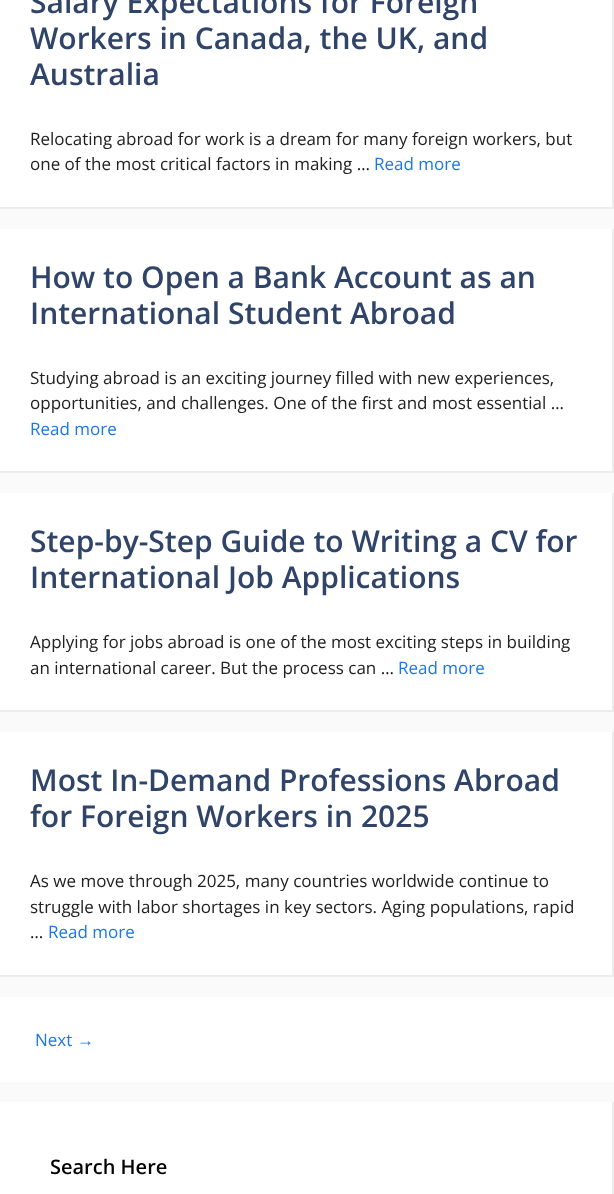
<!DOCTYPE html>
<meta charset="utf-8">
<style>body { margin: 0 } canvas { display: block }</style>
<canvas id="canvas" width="614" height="1194"></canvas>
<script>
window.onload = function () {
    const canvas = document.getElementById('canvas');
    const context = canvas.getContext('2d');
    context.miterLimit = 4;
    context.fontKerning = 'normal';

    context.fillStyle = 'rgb(250, 250, 250)';
    context.fillRect(0, 0, 614, 1194);
    context.fillStyle = 'rgb(255, 255, 255)';
    context.fillRect(0, 0, 614, 209);
    context.fillStyle = 'rgb(237, 237, 237)';
    context.beginPath();
    context.moveTo(614, -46);
    context.lineTo(614, 209);
    context.lineTo(612, 207);
    context.lineTo(612, -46);
    context.closePath();
    context.fill();
    context.fillStyle = 'rgba(0, 0, 0, 0.07)';
    context.beginPath();
    context.moveTo(614, 209);
    context.lineTo(0, 209);
    context.lineTo(0, 207);
    context.lineTo(612, 207);
    context.closePath();
    context.fill();
    context.fillStyle = 'rgb(255, 255, 255)';
    context.fillRect(0, 229, 614, 244);
    context.fillStyle = 'rgb(237, 237, 237)';
    context.beginPath();
    context.moveTo(614, 229);
    context.lineTo(614, 473);
    context.lineTo(612, 471);
    context.lineTo(612, 229);
    context.closePath();
    context.fill();
    context.fillStyle = 'rgba(0, 0, 0, 0.07)';
    context.beginPath();
    context.moveTo(614, 473);
    context.lineTo(0, 473);
    context.lineTo(0, 471);
    context.lineTo(612, 471);
    context.closePath();
    context.fill();
    context.fillStyle = 'rgb(255, 255, 255)';
    context.fillRect(0, 493, 614, 219);
    context.fillStyle = 'rgb(237, 237, 237)';
    context.beginPath();
    context.moveTo(614, 493);
    context.lineTo(614, 712);
    context.lineTo(612, 710);
    context.lineTo(612, 493);
    context.closePath();
    context.fill();
    context.fillStyle = 'rgba(0, 0, 0, 0.07)';
    context.beginPath();
    context.moveTo(614, 712);
    context.lineTo(0, 712);
    context.lineTo(0, 710);
    context.lineTo(612, 710);
    context.closePath();
    context.fill();
    context.fillStyle = 'rgb(255, 255, 255)';
    context.fillRect(0, 732, 614, 245);
    context.fillStyle = 'rgb(237, 237, 237)';
    context.beginPath();
    context.moveTo(614, 732);
    context.lineTo(614, 977);
    context.lineTo(612, 975);
    context.lineTo(612, 732);
    context.closePath();
    context.fill();
    context.fillStyle = 'rgba(0, 0, 0, 0.07)';
    context.beginPath();
    context.moveTo(614, 977);
    context.lineTo(0, 977);
    context.lineTo(0, 975);
    context.lineTo(612, 975);
    context.closePath();
    context.fill();
    context.fillStyle = 'rgb(255, 255, 255)';
    context.fillRect(0, 997, 614, 85);
    context.fillRect(0, 1102, 612, 92);
    context.fillStyle = 'rgb(237, 237, 237)';
    context.beginPath();
    context.moveTo(614, 1102);
    context.lineTo(614, 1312);
    context.lineTo(612, 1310);
    context.lineTo(612, 1102);
    context.closePath();
    context.fill();
    context.font = '600 30px Open Sans';
    context.fillStyle = 'rgb(47, 68, 104)';
    context.fillText('Salary Expectations for Foreign', 30, 13);
    context.fillText('Workers in Canada, the UK, and', 30, 49);
    context.fillText('Australia', 30, 85);
    context.font = '17px Open Sans';
    context.fillStyle = 'rgb(33, 33, 33)';
    context.fillText('Relocating abroad for work is a dream for many foreign workers, but', 30, 145);
    context.fillText('one of the most critical factors in making …', 30, 170);
    context.fillStyle = 'rgb(27, 120, 226)';
    context.fillText('Read more', 374, 170);
    context.font = '600 30px Open Sans';
    context.fillStyle = 'rgb(47, 68, 104)';
    context.fillText('How to Open a Bank Account as an', 30, 288);
    context.fillText('International Student Abroad', 30, 324);
    context.font = '17px Open Sans';
    context.fillStyle = 'rgb(33, 33, 33)';
    context.fillText('Studying abroad is an exciting journey filled with new experiences,', 30, 384);
    context.fillText('opportunities, and challenges. One of the first and most essential …', 30, 409);
    context.fillStyle = 'rgb(27, 120, 226)';
    context.fillText('Read more', 30, 435);
    context.font = '600 30px Open Sans';
    context.fillStyle = 'rgb(47, 68, 104)';
    context.fillText('Step-by-Step Guide to Writing a CV for', 30, 552);
    context.fillText('International Job Applications', 30, 588);
    context.font = '17px Open Sans';
    context.fillStyle = 'rgb(33, 33, 33)';
    context.fillText('Applying for jobs abroad is one of the most exciting steps in building', 30, 648);
    context.fillText('an international career. But the process can …', 30, 674);
    context.fillStyle = 'rgb(27, 120, 226)';
    context.fillText('Read more', 398, 674);
    context.font = '600 30px Open Sans';
    context.fillStyle = 'rgb(47, 68, 104)';
    context.fillText('Most In-Demand Professions Abroad', 30, 791);
    context.fillText('for Foreign Workers in 2025', 30, 827);
    context.font = '17px Open Sans';
    context.fillStyle = 'rgb(33, 33, 33)';
    context.fillText('As we move through 2025, many countries worldwide continue to', 30, 887);
    context.fillText('struggle with labor shortages in key sectors. Aging populations, rapid', 30, 913);
    context.fillText('…', 30, 938);
    context.fillStyle = 'rgb(27, 120, 226)';
    context.fillText('Read more', 48, 938);
    context.fillText('Next', 35, 1046);
    context.font = '17px Liberation Sans';
    context.fillText('→', 77, 1046);
    context.font = '600 20px Open Sans';
    context.fillStyle = 'rgb(0, 0, 0)';
    context.fillText('Search Here', 50, 1174);
};
</script>
